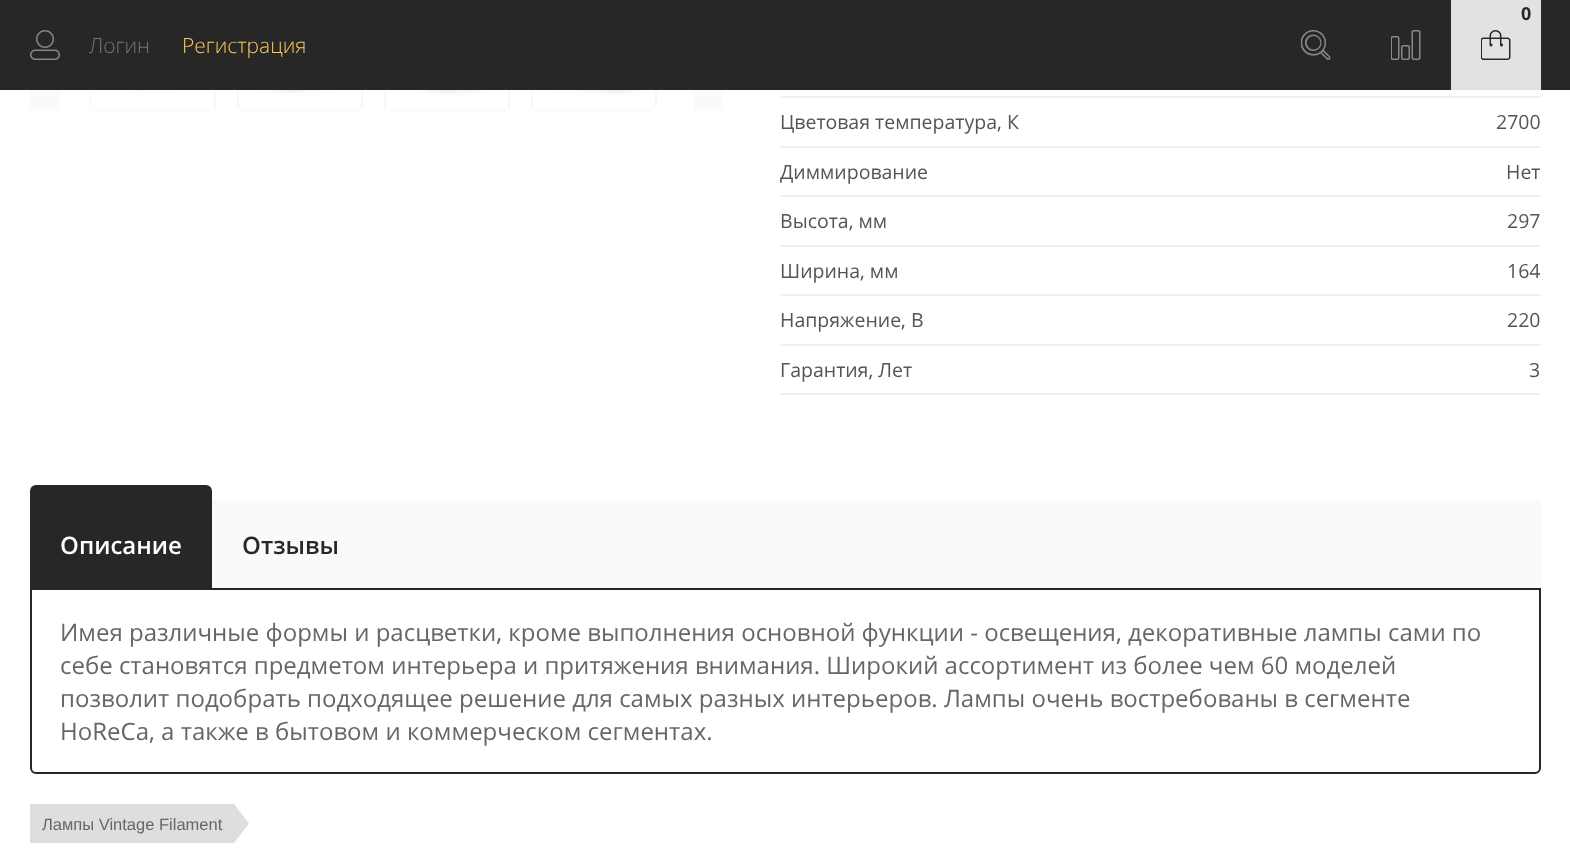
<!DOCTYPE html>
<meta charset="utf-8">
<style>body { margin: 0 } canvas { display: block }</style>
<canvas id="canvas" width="1570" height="850"></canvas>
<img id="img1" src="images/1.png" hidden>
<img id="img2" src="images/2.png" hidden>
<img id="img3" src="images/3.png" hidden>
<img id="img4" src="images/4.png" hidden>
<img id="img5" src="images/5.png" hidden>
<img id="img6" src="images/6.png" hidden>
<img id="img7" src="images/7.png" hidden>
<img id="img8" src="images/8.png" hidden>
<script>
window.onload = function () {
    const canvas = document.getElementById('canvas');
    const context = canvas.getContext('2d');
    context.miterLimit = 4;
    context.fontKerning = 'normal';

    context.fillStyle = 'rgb(255, 255, 255)';
    context.fillRect(0, 0, 1570, 850);
    context.beginPath();
    context.roundRect(91, -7, 124, 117, 5);
    context.strokeStyle = 'rgb(247, 247, 247)';
    context.lineWidth = 2;
    context.stroke();
    context.beginPath();
    context.roundRect(238, -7, 124, 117, 5);
    context.stroke();
    context.beginPath();
    context.roundRect(385, -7, 124, 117, 5);
    context.stroke();
    context.beginPath();
    context.roundRect(532, -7, 124, 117, 5);
    context.stroke();
    context.fillStyle = 'rgb(250, 250, 250)';
    context.beginPath();
    context.moveTo(36, -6);
    context.lineTo(60, -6);
    context.lineTo(60, 111);
    context.lineTo(36, 111);
    context.bezierCurveTo(32.5, 111, 30, 108.5, 30, 105);
    context.lineTo(30, 0);
    context.bezierCurveTo(30, -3.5, 32.5, -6, 36, -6);
    context.closePath();
    context.fill();
    context.beginPath();
    context.moveTo(693, -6);
    context.lineTo(717, -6);
    context.bezierCurveTo(720.5, -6, 723, -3.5, 723, 0);
    context.lineTo(723, 105);
    context.bezierCurveTo(723, 108.5, 720.5, 111, 717, 111);
    context.lineTo(693, 111);
    context.closePath();
    context.fill();
    context.fillStyle = 'rgb(39, 39, 39)';
    context.fillRect(0, 0, 1570, 90);
    context.fillStyle = 'rgb(226, 226, 228)';
    context.fillRect(1451, 0, 90, 90);
    context.drawImage(document.getElementById('img1'), 1481, 30, 30, 30);
    context.drawImage(document.getElementById('img2'), 1301, 30, 30, 30);
    context.drawImage(document.getElementById('img3'), 1391, 30, 30, 30);
    context.drawImage(document.getElementById('img4'), 30, 30, 30, 30);
    context.drawImage(document.getElementById('img5'), 91, 90, 123, 20);
    context.drawImage(document.getElementById('img6'), 239, 90, 122, 20);
    context.drawImage(document.getElementById('img7'), 386, 90, 122, 20);
    context.drawImage(document.getElementById('img8'), 533, 90, 122, 20);
    context.fillStyle = 'rgb(240, 240, 240)';
    context.fillRect(780, 96, 761, 2);
    context.fillRect(780, 146, 761, 2);
    context.fillRect(780, 195, 761, 2);
    context.fillRect(780, 245, 761, 2);
    context.fillRect(780, 294, 761, 2);
    context.fillRect(780, 344, 761, 2);
    context.fillRect(780, 393, 761, 2);
    context.fillStyle = 'rgb(250, 250, 250)';
    context.beginPath();
    context.roundRect(30, 500, 1511, 90, [6, 6, 0, 0]);
    context.fill();
    context.beginPath();
    context.roundRect(31, 589, 1509, 184, [0, 0, 5, 5]);
    context.strokeStyle = 'rgb(39, 39, 39)';
    context.stroke();
    context.fillStyle = 'rgb(39, 39, 39)';
    context.beginPath();
    context.roundRect(30, 485, 182, 105, [6, 6, 0, 0]);
    context.fill();
    context.fillStyle = 'rgb(222, 222, 222)';
    context.fillRect(30, 804, 204, 39);
    context.beginPath();
    context.moveTo(234, 843);
    context.lineTo(234, 804);
    context.lineTo(249, 823.5);
    context.closePath();
    context.fill();
    context.font = 'bold 18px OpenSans';
    context.fillStyle = 'rgb(39, 39, 39)';
    context.fillText('0', 1521, 20);
    context.font = '300 21px Open Sans';
    context.fillStyle = 'rgb(117, 117, 117)';
    context.fillText('Логин', 89, 53);
    context.fillStyle = 'rgb(254, 199, 91)';
    context.fillText('Регистрация', 182, 53);
    context.font = '19.5px OpenSans';
    context.fillStyle = 'rgb(85, 85, 85)';
    context.fillText('Цветовая температура, К', 780, 129);
    context.fillText('2700', 1496, 129);
    context.fillText('Диммирование', 780, 179);
    context.fillText('Нет', 1506, 179);
    context.fillText('Высота, мм', 780, 228);
    context.fillText('297', 1507, 228);
    context.fillText('Ширина, мм', 780, 278);
    context.fillText('164', 1507, 278);
    context.fillText('Напряжение, В', 780, 327);
    context.fillText('220', 1507, 327);
    context.fillText('Гарантия, Лет', 780, 377);
    context.fillText('3', 1529, 377);
    context.font = '600 24px Open Sans';
    context.fillStyle = 'rgb(255, 255, 255)';
    context.fillText('Описание', 60, 554);
    context.fillStyle = 'rgb(39, 39, 39)';
    context.fillText('Отзывы', 242, 554);
    context.font = '24px OpenSans';
    context.fillStyle = 'rgb(102, 102, 102)';
    context.fillText('Имея различные формы и расцветки, кроме выполнения основной функции - освещения, декоративные лампы сами по', 60, 641);
    context.fillText('себе становятся предметом интерьера и притяжения внимания. Широкий ассортимент из более чем 60 моделей', 60, 674);
    context.fillText('позволит подобрать подходящее решение для самых разных интерьеров. Лампы очень востребованы в сегменте', 60, 707);
    context.fillText('HoReCa, а также в бытовом и коммерческом сегментах.', 60, 740);
    context.font = '16.5px Liberation Sans';
    context.fillText('Лампы Vintage Filament', 42, 830);
};
</script>
